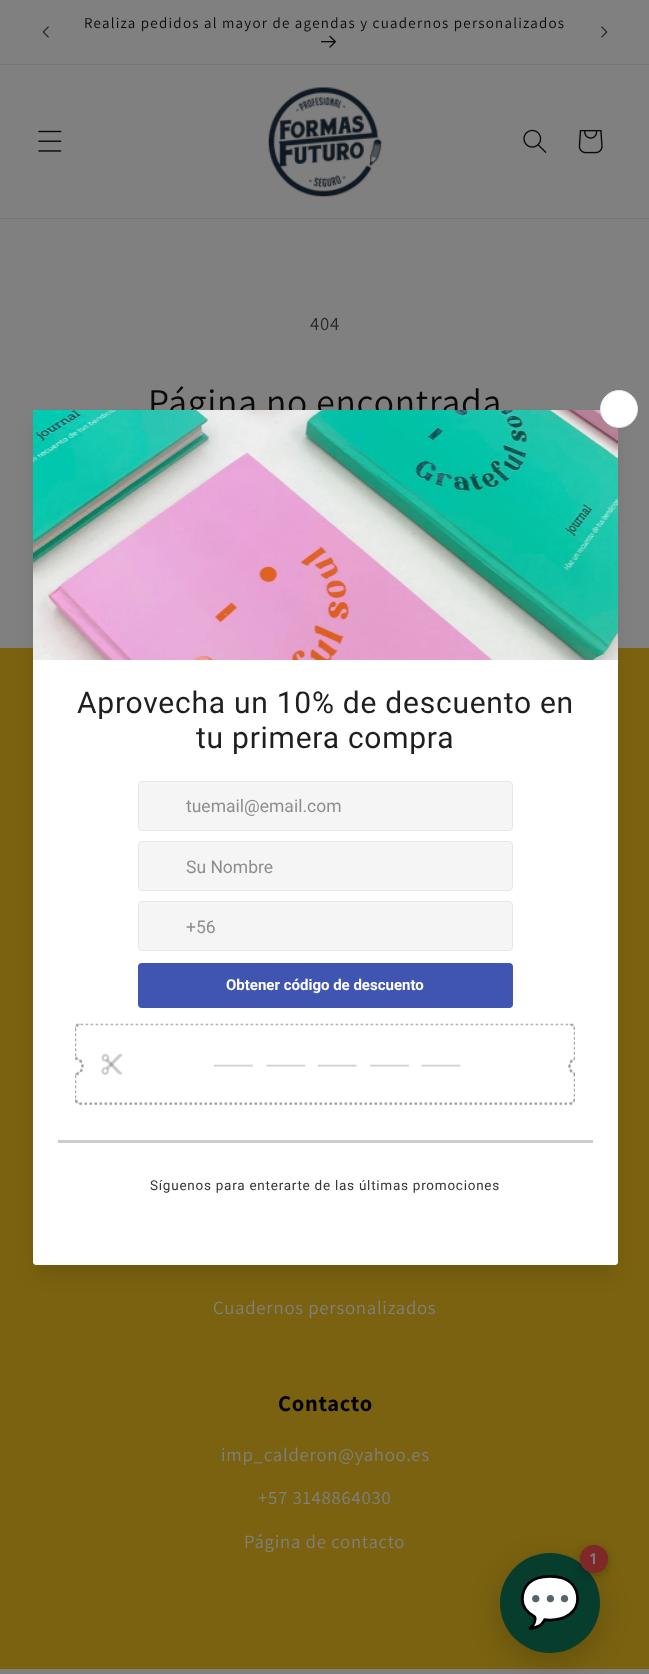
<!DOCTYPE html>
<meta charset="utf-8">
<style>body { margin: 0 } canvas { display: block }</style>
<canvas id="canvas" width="649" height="1674"></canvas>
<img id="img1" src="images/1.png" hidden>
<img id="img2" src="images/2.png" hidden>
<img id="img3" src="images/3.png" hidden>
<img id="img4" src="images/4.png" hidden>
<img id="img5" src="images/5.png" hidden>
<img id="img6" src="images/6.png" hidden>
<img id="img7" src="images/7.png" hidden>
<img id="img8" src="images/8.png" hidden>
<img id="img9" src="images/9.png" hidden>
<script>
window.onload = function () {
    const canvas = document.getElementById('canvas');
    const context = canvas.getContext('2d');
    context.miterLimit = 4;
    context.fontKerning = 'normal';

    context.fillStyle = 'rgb(128, 128, 128)';
    context.fillRect(0, 0, 649, 1674);
    context.fillStyle = 'rgb(118, 118, 118)';
    context.fillRect(0, 64, 649, 1);
    context.drawImage(document.getElementById('img1'), 42, 26, 7, 12);
    context.drawImage(document.getElementById('img2'), 321, 35, 15, 13);
    context.drawImage(document.getElementById('img3'), 601, 26, 7, 12);
    context.fillRect(0, 218, 649, 1);
    context.drawImage(document.getElementById('img4'), 38, 130, 24, 22);
    context.drawImage(document.getElementById('img5'), 268, 87, 114, 110);
    context.drawImage(document.getElementById('img6'), 523, 129, 24, 24);
    context.drawImage(document.getElementById('img7'), 578, 130, 25, 24);
    context.fillStyle = 'rgb(122, 98, 16)';
    context.fillRect(0, 648, 649, 1021);
    context.fillStyle = 'rgba(0, 0, 0, 0.1)';
    context.filter = 'blur(9.5px)';
    context.beginPath();
    context.rect(36, 426, 578, 848);
    context.fill();
    context.filter = 'none';
    context.fillStyle = 'rgba(0, 0, 0, 0.18)';
    context.filter = 'blur(15px)';
    context.beginPath();
    context.roundRect(500, 1563, 100, 100, 50);
    context.fill();
    context.filter = 'none';
    context.fillStyle = 'rgb(7, 61, 44)';
    context.beginPath();
    context.arc(550, 1603, 50, 0, 2 * Math.PI);
    context.fill();
    context.fillStyle = 'rgba(0, 0, 0, 0.25)';
    context.filter = 'blur(5px)';
    context.beginPath();
    context.roundRect(580, 1548, 28, 27, 13.5);
    context.fill();
    context.filter = 'none';
    context.fillStyle = 'rgb(128, 39, 40)';
    context.beginPath();
    context.arc(594, 1559, 14, 0, 2 * Math.PI);
    context.fill();
    context.letterSpacing = '1.25px';
    context.font = '15px Assistant';
    context.fillStyle = 'rgb(9, 9, 9)';
    context.fillText('Realiza pedidos al mayor de agendas y cuadernos personalizados', 84, 28);
    context.letterSpacing = '0.75px';
    context.font = '18.75px Assistant';
    context.fillStyle = 'rgb(39, 39, 39)';
    context.fillText('404', 310, 330);
    context.font = '37.5px Assistant';
    context.fillStyle = 'rgb(9, 9, 9)';
    context.fillText('Página no encontrada', 148, 415);
    context.fillStyle = 'rgb(255, 255, 255)';
    context.beginPath();
    context.roundRect(33, 410, 585, 855, 4);
    context.fill();
    context.drawImage(document.getElementById('img8'), 33, 410, 585, 250);
    context.beginPath();
    context.arc(619, 409, 18.5, 0, 2 * Math.PI);
    context.fill();
    context.strokeStyle = 'rgb(226, 232, 240)';
    context.stroke();
    context.beginPath();
    context.roundRect(33, 660, 585, 605, 4);
    context.fill();
    context.font = '30px Roboto';
    context.fillStyle = 'rgb(31, 31, 31)';
    context.fillText('Aprovecha un 10% de descuento en', 77, 713);
    context.fillText('tu primera compra', 196, 748);
    context.fillStyle = 'rgb(245, 245, 245)';
    context.beginPath();
    context.roundRect(138.5, 781.5, 374, 49, 3.5);
    context.fill();
    context.stroke();
    context.letterSpacing = '0px';
    context.font = '17.5px Roboto';
    context.fillStyle = 'rgb(142, 142, 142)';
    context.fillText('tuemail@email.com', 186, 812);
    context.fillStyle = 'rgb(245, 245, 245)';
    context.beginPath();
    context.roundRect(138.5, 841.5, 374, 49, 3.5);
    context.fill();
    context.stroke();
    context.fillStyle = 'rgb(142, 142, 142)';
    context.fillText('Su Nombre', 186, 873);
    context.fillStyle = 'rgb(245, 245, 245)';
    context.beginPath();
    context.roundRect(138.5, 901.5, 374, 49, 3.5);
    context.fill();
    context.stroke();
    context.fillStyle = 'rgb(142, 142, 142)';
    context.fillText('+56', 186, 933);
    context.fillStyle = 'rgb(64, 84, 178)';
    context.beginPath();
    context.roundRect(138, 963, 375, 45, 4);
    context.fill();
    context.font = 'bold 15px Roboto';
    context.fillStyle = 'rgb(255, 255, 255)';
    context.fillText('Obtener código de descuento', 226, 990);
    context.drawImage(document.getElementById('img9'), 75, 1023, 500, 83);
    context.fillStyle = 'rgb(205, 205, 205)';
    context.fillRect(58, 1140, 535, 3);
    context.letterSpacing = '0.75px';
    context.font = '13.5px Roboto';
    context.fillStyle = 'rgb(54, 54, 54)';
    context.fillText('Síguenos para enterarte de las últimas promociones', 150, 1190);
    context.font = '18.75px Assistant';
    context.fillStyle = 'rgb(128, 128, 128)';
    context.fillText('Cuadernos personalizados', 213, 1314);
    context.font = 'bold 22.5px Assistant';
    context.fillStyle = 'rgb(0, 0, 0)';
    context.fillText('Contacto', 278, 1411);
    context.font = '18.75px Assistant';
    context.fillStyle = 'rgb(128, 128, 128)';
    context.fillText('imp_calderon@yahoo.es', 221, 1461);
    context.fillText('+57 3148864030', 258, 1504);
    context.fillText('Página de contacto', 244, 1548);
    context.letterSpacing = '0px';
    context.font = '600 15px Noto Sans';
    context.fillText('1', 589, 1564);
    context.font = '50px Noto Color Emoji';
    context.fillText('💬', 519, 1619);
};
</script>
